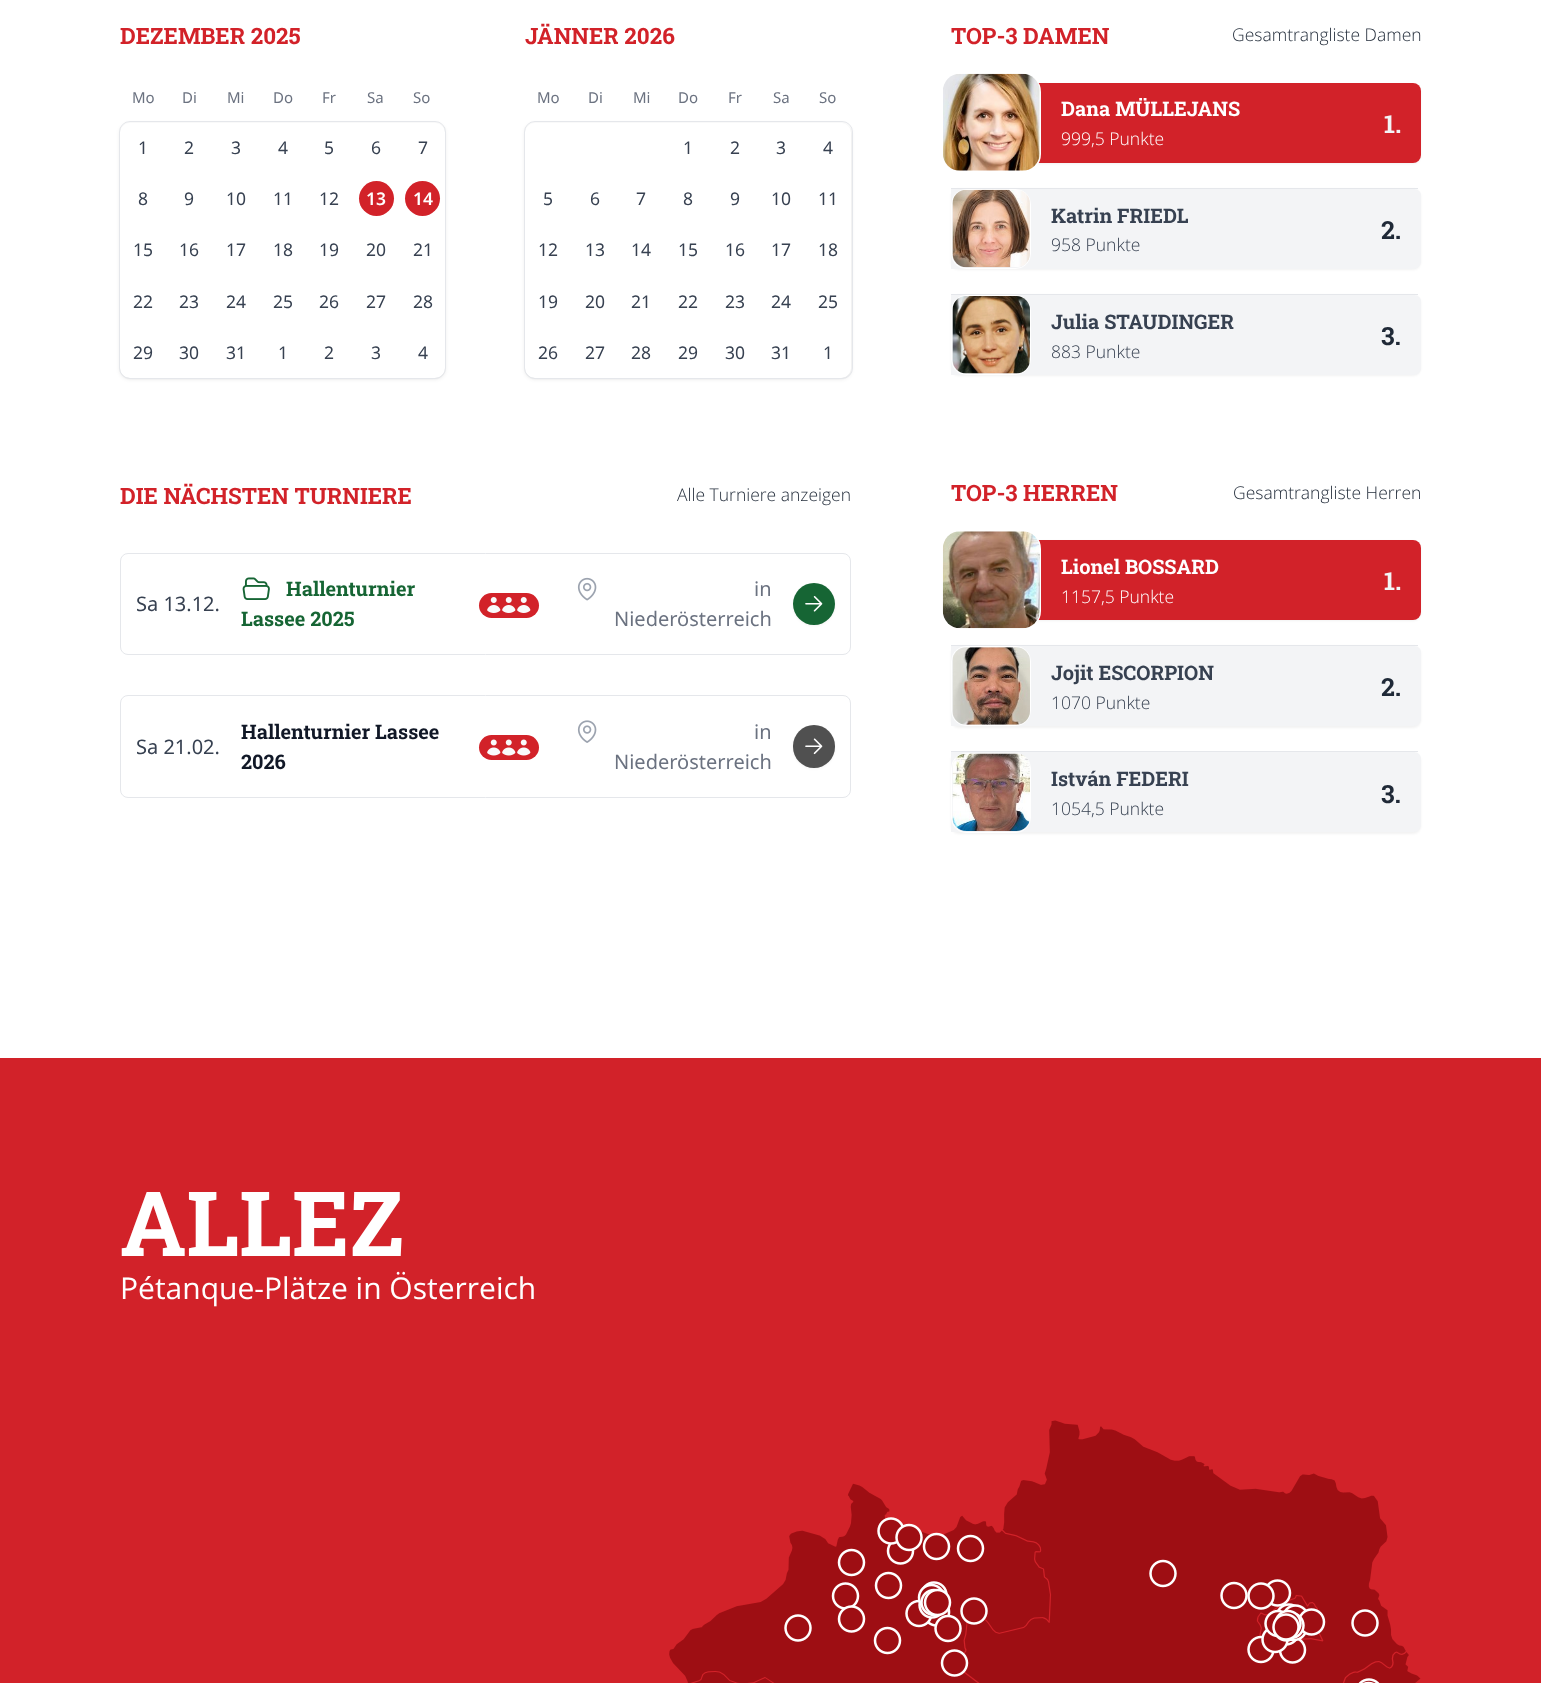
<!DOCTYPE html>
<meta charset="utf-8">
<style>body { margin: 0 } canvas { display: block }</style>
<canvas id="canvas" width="1541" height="1683"></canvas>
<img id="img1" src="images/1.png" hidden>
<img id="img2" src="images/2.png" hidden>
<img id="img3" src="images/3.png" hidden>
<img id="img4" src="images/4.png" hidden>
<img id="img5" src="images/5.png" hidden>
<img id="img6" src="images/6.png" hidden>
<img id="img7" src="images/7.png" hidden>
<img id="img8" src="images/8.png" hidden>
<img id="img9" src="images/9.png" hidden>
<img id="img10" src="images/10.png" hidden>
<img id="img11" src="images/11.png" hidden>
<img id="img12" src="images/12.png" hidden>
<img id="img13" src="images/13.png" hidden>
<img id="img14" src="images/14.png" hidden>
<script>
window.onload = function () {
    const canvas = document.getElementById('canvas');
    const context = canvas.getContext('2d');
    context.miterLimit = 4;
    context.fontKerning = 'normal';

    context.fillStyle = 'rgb(255, 255, 255)';
    context.fillRect(0, 0, 1541, 1683);
    context.save();
    context.beginPath();
    context.moveTo(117, 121);
    context.lineTo(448, 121);
    context.lineTo(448, 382);
    context.lineTo(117, 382);
    context.closePath();
    context.moveTo(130, 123);
    context.lineTo(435, 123);
    context.bezierCurveTo(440.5, 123, 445, 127.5, 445, 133);
    context.lineTo(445, 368);
    context.bezierCurveTo(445, 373.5, 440.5, 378, 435, 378);
    context.lineTo(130, 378);
    context.bezierCurveTo(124.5, 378, 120, 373.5, 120, 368);
    context.lineTo(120, 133);
    context.bezierCurveTo(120, 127.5, 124.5, 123, 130, 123);
    context.closePath();
    context.clip('evenodd');
    context.fillStyle = 'rgba(0, 0, 0, 0.1)';
    context.filter = 'blur(1px)';
    context.beginPath();
    context.roundRect(121, 125, 323, 253, 9);
    context.fill();
    context.filter = 'none';
    context.restore();
    context.save();
    context.beginPath();
    context.moveTo(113, 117);
    context.lineTo(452, 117);
    context.lineTo(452, 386);
    context.lineTo(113, 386);
    context.closePath();
    context.moveTo(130, 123);
    context.lineTo(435, 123);
    context.bezierCurveTo(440.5, 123, 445, 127.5, 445, 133);
    context.lineTo(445, 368);
    context.bezierCurveTo(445, 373.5, 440.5, 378, 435, 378);
    context.lineTo(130, 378);
    context.bezierCurveTo(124.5, 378, 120, 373.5, 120, 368);
    context.lineTo(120, 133);
    context.bezierCurveTo(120, 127.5, 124.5, 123, 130, 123);
    context.closePath();
    context.clip('evenodd');
    context.fillStyle = 'rgba(0, 0, 0, 0.1)';
    context.filter = 'blur(2px)';
    context.beginPath();
    context.roundRect(120, 124, 325, 255, 10);
    context.fill();
    context.filter = 'none';
    context.restore();
    context.beginPath();
    context.roundRect(119.5, 121.5, 326, 257, 10.5);
    context.strokeStyle = 'rgb(229, 231, 235)';
    context.stroke();
    context.fillStyle = 'rgb(210, 34, 41)';
    context.beginPath();
    context.arc(376.5, 198.5, 17.5, 0, 2 * Math.PI);
    context.fill();
    context.beginPath();
    context.arc(422.5, 198.5, 17.5, 0, 2 * Math.PI);
    context.fill();
    context.save();
    context.beginPath();
    context.moveTo(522, 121);
    context.lineTo(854, 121);
    context.lineTo(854, 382);
    context.lineTo(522, 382);
    context.closePath();
    context.moveTo(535, 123);
    context.lineTo(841, 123);
    context.bezierCurveTo(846.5, 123, 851, 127.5, 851, 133);
    context.lineTo(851, 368);
    context.bezierCurveTo(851, 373.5, 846.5, 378, 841, 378);
    context.lineTo(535, 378);
    context.bezierCurveTo(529.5, 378, 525, 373.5, 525, 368);
    context.lineTo(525, 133);
    context.bezierCurveTo(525, 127.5, 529.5, 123, 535, 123);
    context.closePath();
    context.clip('evenodd');
    context.fillStyle = 'rgba(0, 0, 0, 0.1)';
    context.filter = 'blur(1px)';
    context.beginPath();
    context.roundRect(526, 125, 324, 253, 9);
    context.fill();
    context.filter = 'none';
    context.restore();
    context.save();
    context.beginPath();
    context.moveTo(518, 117);
    context.lineTo(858, 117);
    context.lineTo(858, 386);
    context.lineTo(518, 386);
    context.closePath();
    context.moveTo(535, 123);
    context.lineTo(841, 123);
    context.bezierCurveTo(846.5, 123, 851, 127.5, 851, 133);
    context.lineTo(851, 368);
    context.bezierCurveTo(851, 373.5, 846.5, 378, 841, 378);
    context.lineTo(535, 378);
    context.bezierCurveTo(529.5, 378, 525, 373.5, 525, 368);
    context.lineTo(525, 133);
    context.bezierCurveTo(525, 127.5, 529.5, 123, 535, 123);
    context.closePath();
    context.clip('evenodd');
    context.fillStyle = 'rgba(0, 0, 0, 0.1)';
    context.filter = 'blur(2px)';
    context.beginPath();
    context.roundRect(525, 124, 326, 255, 10);
    context.fill();
    context.filter = 'none';
    context.restore();
    context.beginPath();
    context.roundRect(524.5, 121.5, 328, 257, 10.5);
    context.stroke();
    context.beginPath();
    context.roundRect(120.5, 553.5, 730, 101, 7.5);
    context.stroke();
    context.drawImage(document.getElementById('img1'), 242, 577, 28, 23);
    context.beginPath();
    context.roundRect(479, 593, 60, 25, 12.5);
    context.fill();
    context.drawImage(document.getElementById('img2'), 487, 597, 14, 16);
    context.drawImage(document.getElementById('img2'), 502, 597, 14, 16);
    context.drawImage(document.getElementById('img2'), 517, 597, 14, 16);
    context.drawImage(document.getElementById('img3'), 577, 577, 20, 24);
    context.fillStyle = 'rgba(0, 0, 0, 0.05)';
    context.filter = 'blur(1px)';
    context.beginPath();
    context.roundRect(793, 584, 42, 42, 21);
    context.fill();
    context.filter = 'none';
    context.fillStyle = 'rgb(22, 101, 52)';
    context.beginPath();
    context.arc(814, 604, 21, 0, 2 * Math.PI);
    context.fill();
    context.drawImage(document.getElementById('img4'), 805, 596, 18, 16);
    context.beginPath();
    context.roundRect(120.5, 695.5, 730, 102, 7.5);
    context.stroke();
    context.fillStyle = 'rgb(210, 34, 41)';
    context.beginPath();
    context.roundRect(479, 735, 60, 25, 12.5);
    context.fill();
    context.drawImage(document.getElementById('img5'), 487, 739, 14, 17);
    context.drawImage(document.getElementById('img5'), 502, 739, 14, 17);
    context.drawImage(document.getElementById('img5'), 517, 739, 14, 17);
    context.drawImage(document.getElementById('img6'), 577, 720, 20, 23);
    context.fillStyle = 'rgba(0, 0, 0, 0.05)';
    context.filter = 'blur(1px)';
    context.beginPath();
    context.roundRect(793, 726, 42, 43, 21);
    context.fill();
    context.filter = 'none';
    context.fillStyle = 'rgb(80, 80, 80)';
    context.beginPath();
    context.roundRect(793, 725, 42, 43, 21);
    context.fill();
    context.drawImage(document.getElementById('img7'), 805, 738, 18, 17);
    context.fillStyle = 'rgba(0, 0, 0, 0.05)';
    context.filter = 'blur(1px)';
    context.beginPath();
    context.roundRect(951, 84, 470, 80, 8);
    context.fill();
    context.filter = 'none';
    context.fillStyle = 'rgb(210, 34, 41)';
    context.beginPath();
    context.roundRect(951, 83, 470, 80, [0, 8, 8, 0]);
    context.fill();
    context.beginPath();
    context.roundRect(942, 74, 98, 98, 18);
    context.strokeStyle = 'rgb(255, 255, 255)';
    context.lineWidth = 2;
    context.stroke();
    context.drawImage(document.getElementById('img8'), 943, 73, 97, 98);
    context.fillStyle = 'rgba(0, 0, 0, 0.05)';
    context.filter = 'blur(1px)';
    context.beginPath();
    context.roundRect(951, 189, 470, 81, 8);
    context.fill();
    context.filter = 'none';
    context.fillStyle = 'rgb(243, 244, 246)';
    context.beginPath();
    context.moveTo(951, 189);
    context.lineTo(1414, 189);
    context.bezierCurveTo(1418, 189, 1421, 192, 1421, 195);
    context.lineTo(1421, 261);
    context.bezierCurveTo(1421, 265, 1418, 269, 1414, 269);
    context.lineTo(951, 269);
    context.closePath();
    context.fill();
    context.fillStyle = 'rgb(229, 231, 235)';
    context.fillRect(951, 188, 467, 1);
    context.beginPath();
    context.roundRect(951.5, 189.5, 79, 79, 14.5);
    context.lineWidth = 1;
    context.stroke();
    context.drawImage(document.getElementById('img9'), 952, 189, 78, 79);
    context.fillStyle = 'rgba(0, 0, 0, 0.05)';
    context.filter = 'blur(1px)';
    context.beginPath();
    context.roundRect(951, 295, 470, 81, 8);
    context.fill();
    context.filter = 'none';
    context.fillStyle = 'rgb(243, 244, 246)';
    context.beginPath();
    context.moveTo(951, 295);
    context.lineTo(1414, 295);
    context.bezierCurveTo(1418, 295, 1421, 298, 1421, 301);
    context.lineTo(1421, 368);
    context.bezierCurveTo(1421, 372, 1418, 375, 1414, 375);
    context.lineTo(951, 375);
    context.closePath();
    context.fill();
    context.fillStyle = 'rgb(229, 231, 235)';
    context.fillRect(951, 294, 467, 1);
    context.beginPath();
    context.roundRect(951.5, 295.5, 79, 79, 14.5);
    context.stroke();
    context.drawImage(document.getElementById('img10'), 952, 296, 78, 78);
    context.fillStyle = 'rgba(0, 0, 0, 0.05)';
    context.filter = 'blur(1px)';
    context.beginPath();
    context.roundRect(951, 541, 470, 80, 8);
    context.fill();
    context.filter = 'none';
    context.fillStyle = 'rgb(210, 34, 41)';
    context.beginPath();
    context.roundRect(951, 540, 470, 80, [0, 8, 8, 0]);
    context.fill();
    context.beginPath();
    context.roundRect(942, 531, 98, 98, 18);
    context.lineWidth = 2;
    context.stroke();
    context.drawImage(document.getElementById('img11'), 942, 531, 98, 98);
    context.fillStyle = 'rgba(0, 0, 0, 0.05)';
    context.filter = 'blur(1px)';
    context.beginPath();
    context.roundRect(951, 646, 470, 82, 8);
    context.fill();
    context.filter = 'none';
    context.fillStyle = 'rgb(243, 244, 246)';
    context.beginPath();
    context.moveTo(951, 646);
    context.lineTo(1414, 646);
    context.bezierCurveTo(1418, 646, 1421, 649, 1421, 652);
    context.lineTo(1421, 719);
    context.bezierCurveTo(1421, 723, 1418, 726, 1414, 726);
    context.lineTo(951, 726);
    context.closePath();
    context.fill();
    context.fillStyle = 'rgb(229, 231, 235)';
    context.fillRect(951, 645, 467, 1);
    context.beginPath();
    context.roundRect(951.5, 646.5, 79, 79, 14.5);
    context.lineWidth = 1;
    context.stroke();
    context.drawImage(document.getElementById('img12'), 952, 647, 78, 78);
    context.fillStyle = 'rgba(0, 0, 0, 0.05)';
    context.filter = 'blur(1px)';
    context.beginPath();
    context.roundRect(951, 753, 470, 81, 8);
    context.fill();
    context.filter = 'none';
    context.fillStyle = 'rgb(243, 244, 246)';
    context.beginPath();
    context.moveTo(951, 752);
    context.lineTo(1414, 752);
    context.bezierCurveTo(1418, 752, 1421, 755, 1421, 759);
    context.lineTo(1421, 825);
    context.bezierCurveTo(1421, 829, 1418, 832, 1414, 832);
    context.lineTo(951, 832);
    context.closePath();
    context.fill();
    context.fillStyle = 'rgb(229, 231, 235)';
    context.fillRect(951, 751, 467, 1);
    context.beginPath();
    context.roundRect(951.5, 753.5, 79, 79, 14.5);
    context.stroke();
    context.drawImage(document.getElementById('img13'), 952, 753, 78, 78);
    context.fillStyle = 'rgb(210, 34, 41)';
    context.fillRect(0, 1058, 1541, 625);
    context.drawImage(document.getElementById('img14'), 669, 1420, 752, 263);
    context.font = 'bold 22.5px Roboto Slab';
    context.fillText('DEZEMBER 2025', 120, 44);
    context.font = '15px Noto Sans';
    context.fillStyle = 'rgb(107, 114, 128)';
    context.fillText('Mo', 132, 103);
    context.fillText('Di', 182, 103);
    context.fillText('Mi', 227, 103);
    context.fillText('Do', 273, 103);
    context.fillText('Fr', 322, 103);
    context.fillText('Sa', 367, 103);
    context.fillText('So', 413, 103);
    context.font = '17.5px Noto Sans';
    context.fillStyle = 'rgb(55, 65, 81)';
    context.fillText('1', 138, 154);
    context.fillText('2', 184, 154);
    context.fillText('3', 231, 154);
    context.fillText('4', 278, 154);
    context.fillText('5', 324, 154);
    context.fillText('6', 371, 154);
    context.fillText('7', 418, 154);
    context.fillText('8', 138, 205);
    context.fillText('9', 184, 205);
    context.fillText('10', 226, 205);
    context.fillText('11', 273, 205);
    context.fillText('12', 319, 205);
    context.font = '600 17.5px Noto Sans';
    context.fillStyle = 'rgb(255, 255, 255)';
    context.fillText('13', 366, 205);
    context.fillText('14', 413, 205);
    context.font = '17.5px Noto Sans';
    context.fillStyle = 'rgb(55, 65, 81)';
    context.fillText('15', 133, 256);
    context.fillText('16', 179, 256);
    context.fillText('17', 226, 256);
    context.fillText('18', 273, 256);
    context.fillText('19', 319, 256);
    context.fillText('20', 366, 256);
    context.fillText('21', 413, 256);
    context.fillText('22', 133, 308);
    context.fillText('23', 179, 308);
    context.fillText('24', 226, 308);
    context.fillText('25', 273, 308);
    context.fillText('26', 319, 308);
    context.fillText('27', 366, 308);
    context.fillText('28', 413, 308);
    context.fillText('29', 133, 359);
    context.fillText('30', 179, 359);
    context.fillText('31', 226, 359);
    context.fillText('1', 278, 359);
    context.fillText('2', 324, 359);
    context.fillText('3', 371, 359);
    context.fillText('4', 418, 359);
    context.font = 'bold 22.5px Roboto Slab';
    context.fillStyle = 'rgb(210, 34, 41)';
    context.fillText('JÄNNER 2026', 525, 44);
    context.font = '15px Noto Sans';
    context.fillStyle = 'rgb(107, 114, 128)';
    context.fillText('Mo', 537, 103);
    context.fillText('Di', 588, 103);
    context.fillText('Mi', 633, 103);
    context.fillText('Do', 678, 103);
    context.fillText('Fr', 728, 103);
    context.fillText('Sa', 773, 103);
    context.fillText('So', 819, 103);
    context.font = '17.5px Noto Sans';
    context.fillStyle = 'rgb(55, 65, 81)';
    context.fillText('1', 683, 154);
    context.fillText('2', 730, 154);
    context.fillText('3', 776, 154);
    context.fillText('4', 823, 154);
    context.fillText('5', 543, 205);
    context.fillText('6', 590, 205);
    context.fillText('7', 636, 205);
    context.fillText('8', 683, 205);
    context.fillText('9', 730, 205);
    context.fillText('10', 771, 205);
    context.fillText('11', 818, 205);
    context.fillText('12', 538, 256);
    context.fillText('13', 585, 256);
    context.fillText('14', 631, 256);
    context.fillText('15', 678, 256);
    context.fillText('16', 725, 256);
    context.fillText('17', 771, 256);
    context.fillText('18', 818, 256);
    context.fillText('19', 538, 308);
    context.fillText('20', 585, 308);
    context.fillText('21', 631, 308);
    context.fillText('22', 678, 308);
    context.fillText('23', 725, 308);
    context.fillText('24', 771, 308);
    context.fillText('25', 818, 308);
    context.fillText('26', 538, 359);
    context.fillText('27', 585, 359);
    context.fillText('28', 631, 359);
    context.fillText('29', 678, 359);
    context.fillText('30', 725, 359);
    context.fillText('31', 771, 359);
    context.fillText('1', 823, 359);
    context.font = 'bold 22.5px Roboto Slab';
    context.fillStyle = 'rgb(210, 34, 41)';
    context.fillText('DIE NÄCHSTEN TURNIERE', 120, 504);
    context.font = '300 17.5px Open Sans';
    context.fillStyle = 'rgb(31, 41, 55)';
    context.fillText('Alle Turniere anzeigen', 677, 501);
    context.font = '20px Noto Sans';
    context.fillStyle = 'rgb(55, 65, 81)';
    context.fillText('Sa 13.12.', 136, 611);
    context.font = 'bold 20px Roboto Slab';
    context.fillStyle = 'rgb(22, 101, 52)';
    context.fillText('Hallenturnier', 286, 596);
    context.fillText('Lassee 2025', 241, 626);
    context.font = '20px Noto Sans';
    context.fillStyle = 'rgb(107, 114, 128)';
    context.fillText('in', 754, 596);
    context.fillText('Niederösterreich', 614, 626);
    context.fillStyle = 'rgb(55, 65, 81)';
    context.fillText('Sa 21.02.', 136, 754);
    context.font = 'bold 20px Roboto Slab';
    context.fillStyle = 'rgb(17, 24, 39)';
    context.fillText('Hallenturnier Lassee', 241, 739);
    context.fillText('2026', 241, 769);
    context.font = '20px Noto Sans';
    context.fillStyle = 'rgb(107, 114, 128)';
    context.fillText('in', 754, 739);
    context.fillText('Niederösterreich', 614, 769);
    context.font = 'bold 22.5px Roboto Slab';
    context.fillStyle = 'rgb(210, 34, 41)';
    context.fillText('TOP-3 DAMEN', 951, 44);
    context.font = '300 17.5px Open Sans';
    context.fillStyle = 'rgb(31, 41, 55)';
    context.fillText('Gesamtrangliste Damen', 1232, 41);
    context.font = 'bold 20px Roboto Slab';
    context.fillStyle = 'rgb(255, 255, 255)';
    context.fillText('Dana MÜLLEJANS', 1061, 116);
    context.font = '300 17.5px Open Sans';
    context.fillText('999,5 Punkte', 1061, 145);
    context.font = 'bold 25px Roboto Slab';
    context.fillStyle = 'rgb(243, 244, 246)';
    context.fillText('1.', 1384, 133);
    context.font = 'bold 20px Roboto Slab';
    context.fillStyle = 'rgb(55, 65, 81)';
    context.fillText('Katrin FRIEDL', 1051, 223);
    context.font = '300 17.5px Open Sans';
    context.fillText('958 Punkte', 1051, 251);
    context.font = 'bold 25px Roboto Slab';
    context.fillStyle = 'rgb(31, 41, 55)';
    context.fillText('2.', 1381, 239);
    context.font = 'bold 20px Roboto Slab';
    context.fillStyle = 'rgb(55, 65, 81)';
    context.fillText('Julia STAUDINGER', 1051, 329);
    context.font = '300 17.5px Open Sans';
    context.fillText('883 Punkte', 1051, 358);
    context.font = 'bold 25px Roboto Slab';
    context.fillStyle = 'rgb(31, 41, 55)';
    context.fillText('3.', 1381, 345);
    context.font = 'bold 22.5px Roboto Slab';
    context.fillStyle = 'rgb(210, 34, 41)';
    context.fillText('TOP-3 HERREN', 951, 501);
    context.font = '300 17.5px Open Sans';
    context.fillStyle = 'rgb(31, 41, 55)';
    context.fillText('Gesamtrangliste Herren', 1233, 499);
    context.font = 'bold 20px Roboto Slab';
    context.fillStyle = 'rgb(255, 255, 255)';
    context.fillText('Lionel BOSSARD', 1061, 574);
    context.font = '300 17.5px Open Sans';
    context.fillText('1157,5 Punkte', 1061, 603);
    context.font = 'bold 25px Roboto Slab';
    context.fillStyle = 'rgb(243, 244, 246)';
    context.fillText('1.', 1384, 590);
    context.font = 'bold 20px Roboto Slab';
    context.fillStyle = 'rgb(55, 65, 81)';
    context.fillText('Jojit ESCORPION', 1051, 680);
    context.font = '300 17.5px Open Sans';
    context.fillText('1070 Punkte', 1051, 709);
    context.font = 'bold 25px Roboto Slab';
    context.fillStyle = 'rgb(31, 41, 55)';
    context.fillText('2.', 1381, 696);
    context.font = 'bold 20px Roboto Slab';
    context.fillStyle = 'rgb(55, 65, 81)';
    context.fillText('István FEDERI', 1051, 786);
    context.font = '300 17.5px Open Sans';
    context.fillText('1054,5 Punkte', 1051, 815);
    context.font = 'bold 25px Roboto Slab';
    context.fillStyle = 'rgb(31, 41, 55)';
    context.fillText('3.', 1381, 803);
    context.font = 'bold 90px Roboto Slab';
    context.fillStyle = 'rgb(255, 255, 255)';
    context.fillText('ALLEZ', 120, 1256);
    context.font = '30px Open Sans';
    context.fillText('Pétanque-Plätze in Österreich', 120, 1299);
};
</script>
